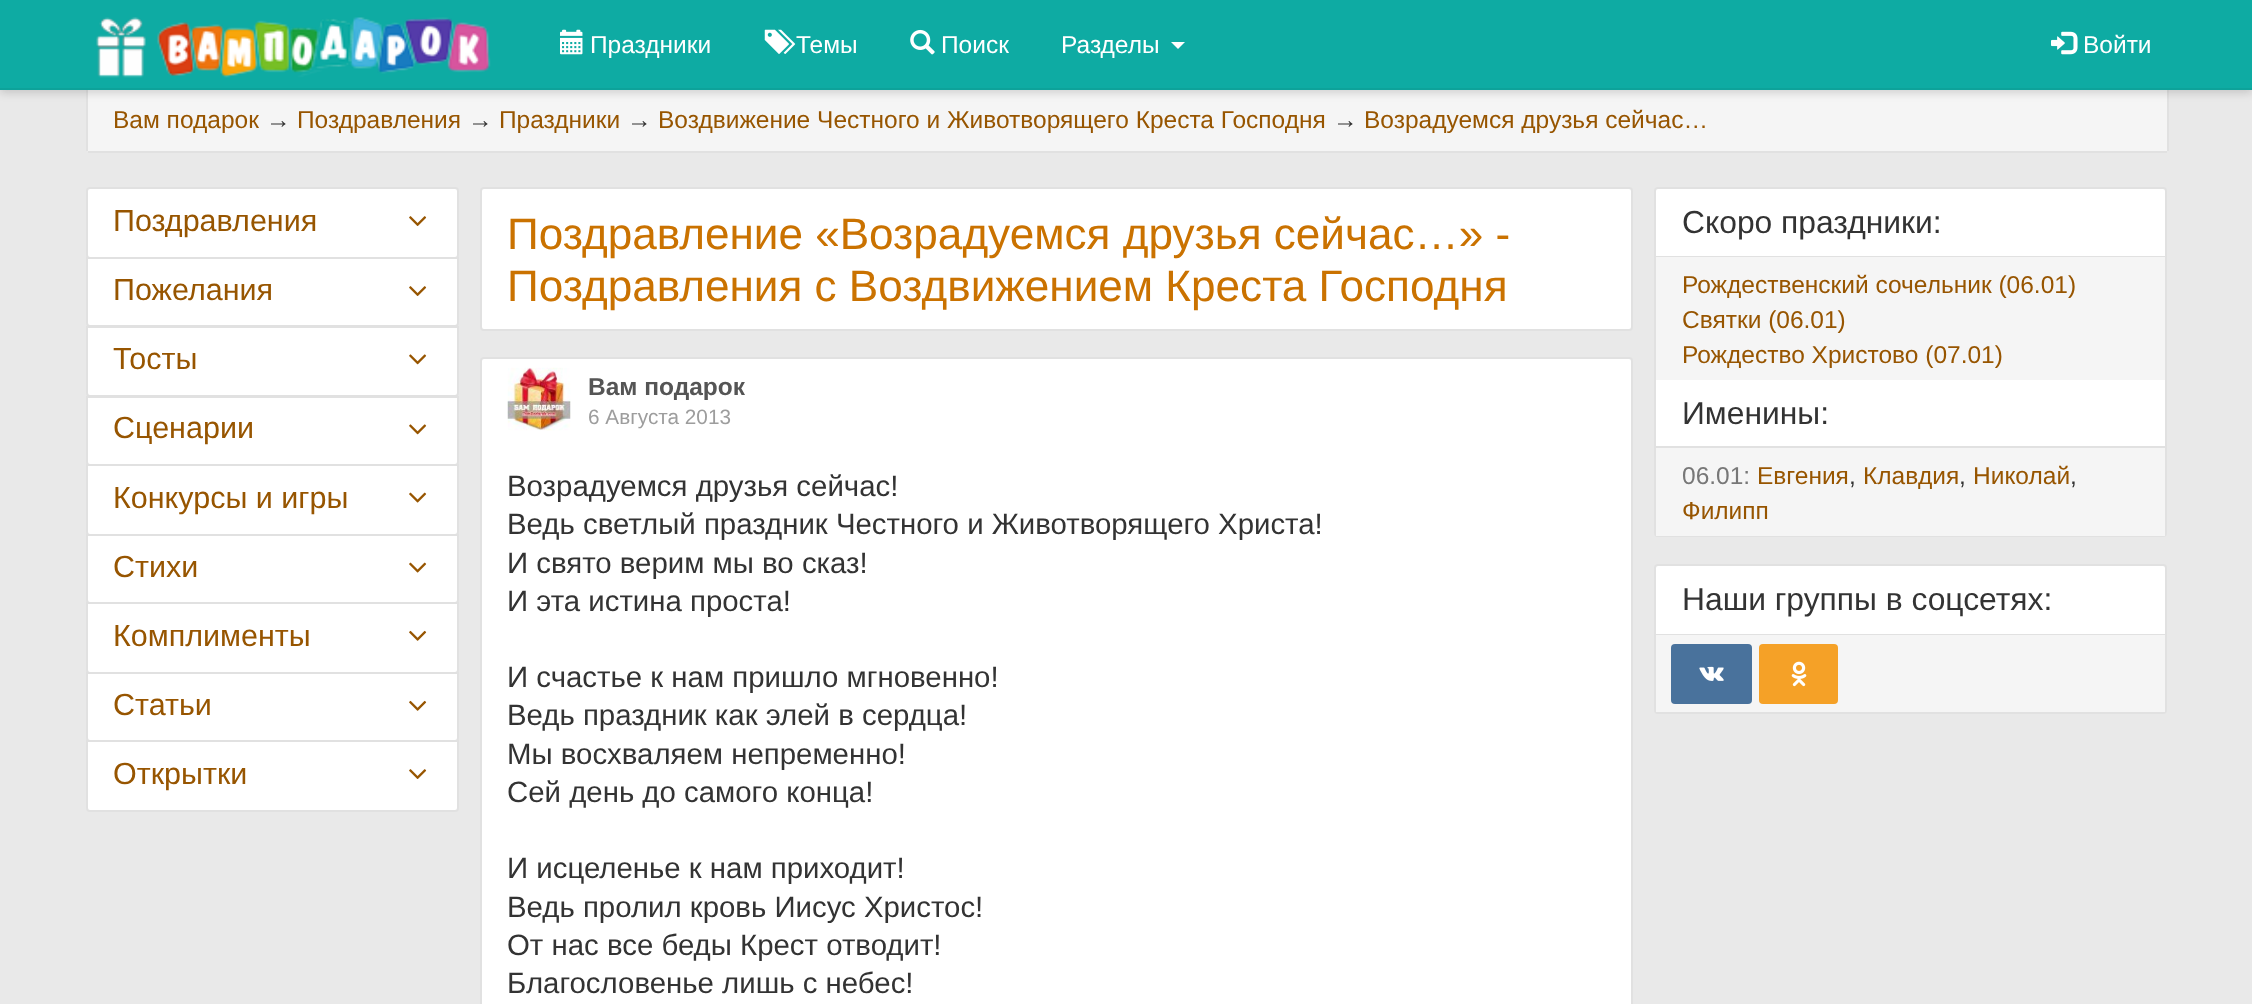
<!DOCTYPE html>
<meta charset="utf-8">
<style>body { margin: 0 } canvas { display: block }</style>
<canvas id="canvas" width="2252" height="1004"></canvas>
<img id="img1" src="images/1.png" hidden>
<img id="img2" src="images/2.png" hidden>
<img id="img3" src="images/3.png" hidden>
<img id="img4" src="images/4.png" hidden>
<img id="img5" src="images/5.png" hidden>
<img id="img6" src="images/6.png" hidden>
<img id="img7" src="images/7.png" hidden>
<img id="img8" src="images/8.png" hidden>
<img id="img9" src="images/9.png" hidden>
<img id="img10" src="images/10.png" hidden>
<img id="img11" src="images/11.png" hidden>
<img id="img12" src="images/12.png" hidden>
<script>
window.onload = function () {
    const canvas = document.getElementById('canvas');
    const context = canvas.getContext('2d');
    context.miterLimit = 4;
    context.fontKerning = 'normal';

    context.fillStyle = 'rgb(233, 233, 233)';
    context.fillRect(0, 0, 2252, 1004);
    context.fillStyle = 'rgb(245, 245, 245)';
    context.beginPath();
    context.roundRect(86, 88, 2082, 64, 4);
    context.fill();
    context.fillStyle = 'rgb(225, 225, 225)';
    context.fillRect(2167, 89, 2, 62);
    context.fillRect(86, 89, 2, 62);
    context.fillStyle = 'rgba(0, 0, 0, 0.15)';
    context.filter = 'blur(4.5px)';
    context.beginPath();
    context.rect(0, 4, 2252, 89);
    context.fill();
    context.filter = 'none';
    context.fillStyle = 'rgb(14, 171, 163)';
    context.fillRect(0, 0, 2252, 88);
    context.fillStyle = 'rgb(13, 162, 154)';
    context.fillRect(0, 88, 2252, 2);
    context.drawImage(document.getElementById('img1'), 96, 17, 395, 61);
    context.drawImage(document.getElementById('img2'), 560, 29, 23, 26);
    context.drawImage(document.getElementById('img3'), 764, 29, 32, 25);
    context.drawImage(document.getElementById('img4'), 910, 29, 25, 26);
    context.fillStyle = 'rgb(255, 255, 255)';
    context.beginPath();
    context.moveTo(1171, 42);
    context.lineTo(1185, 42);
    context.lineTo(1178, 49);
    context.closePath();
    context.fill();
    context.drawImage(document.getElementById('img5'), 2051, 31, 27, 24);
    context.fillStyle = 'rgb(225, 225, 225)';
    context.fillRect(88, 151, 2079, 2);
    context.fillStyle = 'rgb(255, 255, 255)';
    context.beginPath();
    context.roundRect(87, 188, 371, 70, 3);
    context.fill();
    context.strokeStyle = 'rgb(225, 225, 225)';
    context.lineWidth = 2;
    context.stroke();
    context.drawImage(document.getElementById('img6'), 409, 216, 18, 10);
    context.beginPath();
    context.roundRect(87, 258, 371, 68, [0, 0, 3, 3]);
    context.fill();
    context.stroke();
    context.drawImage(document.getElementById('img6'), 409, 286, 18, 10);
    context.beginPath();
    context.roundRect(87, 327, 371, 69, [0, 0, 3, 3]);
    context.fill();
    context.stroke();
    context.drawImage(document.getElementById('img7'), 409, 354, 18, 11);
    context.beginPath();
    context.roundRect(87, 397, 371, 68, [0, 0, 3, 3]);
    context.fill();
    context.stroke();
    context.drawImage(document.getElementById('img7'), 409, 424, 18, 11);
    context.beginPath();
    context.roundRect(87, 465, 371, 70, [0, 0, 3, 3]);
    context.fill();
    context.stroke();
    context.drawImage(document.getElementById('img8'), 409, 492, 18, 11);
    context.beginPath();
    context.roundRect(87, 535, 371, 68, [0, 0, 3, 3]);
    context.fill();
    context.stroke();
    context.drawImage(document.getElementById('img8'), 409, 562, 18, 11);
    context.beginPath();
    context.roundRect(87, 603, 371, 70, [0, 0, 3, 3]);
    context.fill();
    context.stroke();
    context.drawImage(document.getElementById('img9'), 409, 630, 18, 11);
    context.beginPath();
    context.roundRect(87, 673, 371, 68, [0, 0, 3, 3]);
    context.fill();
    context.stroke();
    context.drawImage(document.getElementById('img9'), 409, 700, 18, 11);
    context.beginPath();
    context.roundRect(87, 741, 371, 70, [0, 0, 3, 3]);
    context.fill();
    context.stroke();
    context.drawImage(document.getElementById('img6'), 409, 769, 18, 10);
    context.beginPath();
    context.roundRect(481, 188, 1151, 142, 3);
    context.fill();
    context.stroke();
    context.beginPath();
    context.roundRect(481, 358, 1151, 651, 3);
    context.fill();
    context.stroke();
    context.drawImage(document.getElementById('img10'), 507, 367, 64, 64);
    context.beginPath();
    context.roundRect(1655, 188, 511, 348, 3);
    context.fill();
    context.stroke();
    context.fillStyle = 'rgb(225, 225, 225)';
    context.fillRect(1656, 256, 509, 1);
    context.fillStyle = 'rgb(245, 245, 245)';
    context.fillRect(1656, 257, 509, 123);
    context.fillStyle = 'rgb(225, 225, 225)';
    context.fillRect(1656, 446, 509, 2);
    context.fillStyle = 'rgb(245, 245, 245)';
    context.fillRect(1656, 448, 509, 88);
    context.fillStyle = 'rgb(255, 255, 255)';
    context.beginPath();
    context.roundRect(1655, 565, 511, 148, 3);
    context.fill();
    context.stroke();
    context.fillStyle = 'rgb(225, 225, 225)';
    context.fillRect(1656, 634, 509, 1);
    context.fillStyle = 'rgb(245, 245, 245)';
    context.fillRect(1656, 635, 509, 77);
    context.fillStyle = 'rgb(73, 114, 156)';
    context.beginPath();
    context.roundRect(1671, 644, 81, 60, 4);
    context.fill();
    context.drawImage(document.getElementById('img11'), 1699, 666, 25, 15);
    context.fillStyle = 'rgb(245, 161, 39)';
    context.beginPath();
    context.roundRect(1759, 644, 79, 60, 4);
    context.fill();
    context.drawImage(document.getElementById('img12'), 1791, 661, 16, 26);
    context.font = '24.5px Liberation Sans';
    context.fillStyle = 'rgb(255, 255, 255)';
    context.fillText('Праздники', 590, 53);
    context.fillText('Темы', 796, 53);
    context.fillText('Поиск', 941, 53);
    context.fillText('Разделы', 1061, 53);
    context.fillText('Войти', 2083, 53);
    context.fillStyle = 'rgb(151, 85, 0)';
    context.fillText('Вам подарок', 113, 128);
    context.fillStyle = 'rgb(51, 51, 51)';
    context.fillText('→', 266, 128);
    context.fillStyle = 'rgb(151, 85, 0)';
    context.fillText('Поздравления', 297, 128);
    context.fillStyle = 'rgb(51, 51, 51)';
    context.fillText('→', 468, 128);
    context.fillStyle = 'rgb(151, 85, 0)';
    context.fillText('Праздники', 499, 128);
    context.fillStyle = 'rgb(51, 51, 51)';
    context.fillText('→', 627, 128);
    context.fillStyle = 'rgb(151, 85, 0)';
    context.fillText('Воздвижение Честного и Животворящего Креста Господня', 658, 128);
    context.fillStyle = 'rgb(51, 51, 51)';
    context.fillText('→', 1333, 128);
    context.fillStyle = 'rgb(151, 85, 0)';
    context.fillText('Возрадуемся друзья сейчас…', 1364, 128);
    context.font = '30.5px Liberation Sans';
    context.fillText('Поздравления', 113, 231);
    context.fillText('Пожелания', 113, 300);
    context.fillText('Тосты', 113, 369);
    context.fillText('Сценарии', 113, 438);
    context.fillText('Конкурсы и игры', 113, 508);
    context.fillText('Стихи', 113, 577);
    context.fillText('Комплименты', 113, 646);
    context.fillText('Статьи', 113, 715);
    context.fillText('Открытки', 113, 784);
    context.font = '44.1px Liberation Sans';
    context.fillStyle = 'rgb(202, 114, 0)';
    context.fillText('Поздравление «Возрадуемся друзья сейчас…» -', 507, 249);
    context.fillText('Поздравления с Воздвижением Креста Господня', 507, 301);
    context.font = 'bold 24.5px Liberation Sans';
    context.fillStyle = 'rgb(85, 85, 85)';
    context.fillText('Вам подарок', 588, 395);
    context.font = '20.75px Liberation Sans';
    context.fillStyle = 'rgb(157, 157, 157)';
    context.fillText('6 Августа 2013', 588, 424);
    context.font = '29.4px Liberation Sans';
    context.fillStyle = 'rgb(51, 51, 51)';
    context.fillText('Возрадуемся друзья сейчас!', 507, 496);
    context.fillText('Ведь светлый праздник Честного и Животворящего Христа!', 507, 534);
    context.fillText('И свято верим мы во сказ!', 507, 573);
    context.fillText('И эта истина проста!', 507, 611);
    context.fillText('И счастье к нам пришло мгновенно!', 507, 687);
    context.fillText('Ведь праздник как элей в сердца!', 507, 725);
    context.fillText('Мы восхваляем непременно!', 507, 764);
    context.fillText('Сей день до самого конца!', 507, 802);
    context.fillText('И исцеленье к нам приходит!', 507, 878);
    context.fillText('Ведь пролил кровь Иисус Христос!', 507, 917);
    context.fillText('От нас все беды Крест отводит!', 507, 955);
    context.fillText('Благословенье лишь с небес!', 507, 993);
    context.font = '31.8px Liberation Sans';
    context.fillText('Скоро праздники:', 1682, 233);
    context.font = '24.5px Liberation Sans';
    context.fillStyle = 'rgb(151, 85, 0)';
    context.fillText('Рождественский сочельник (06.01)', 1682, 293);
    context.fillText('Святки (06.01)', 1682, 328);
    context.fillText('Рождество Христово (07.01)', 1682, 363);
    context.font = '31.8px Liberation Sans';
    context.fillStyle = 'rgb(51, 51, 51)';
    context.fillText('Именины:', 1682, 424);
    context.font = '24.5px Liberation Sans';
    context.fillStyle = 'rgb(119, 119, 119)';
    context.fillText('06.01:', 1682, 484);
    context.fillStyle = 'rgb(151, 85, 0)';
    context.fillText('Евгения', 1757, 484);
    context.fillStyle = 'rgb(51, 51, 51)';
    context.fillText(',', 1849, 484);
    context.fillStyle = 'rgb(151, 85, 0)';
    context.fillText('Клавдия', 1863, 484);
    context.fillStyle = 'rgb(51, 51, 51)';
    context.fillText(',', 1959, 484);
    context.fillStyle = 'rgb(151, 85, 0)';
    context.fillText('Николай', 1973, 484);
    context.fillStyle = 'rgb(51, 51, 51)';
    context.fillText(',', 2070, 484);
    context.fillStyle = 'rgb(151, 85, 0)';
    context.fillText('Филипп', 1682, 519);
    context.font = '31.8px Liberation Sans';
    context.fillStyle = 'rgb(51, 51, 51)';
    context.fillText('Наши группы в соцсетях:', 1682, 610);
};
</script>
